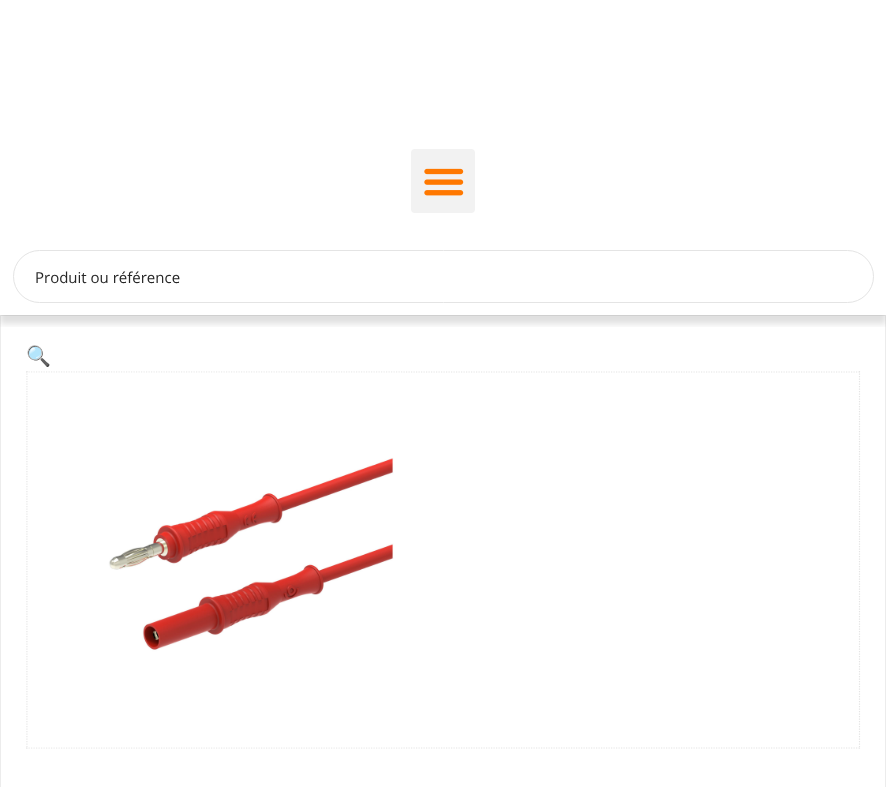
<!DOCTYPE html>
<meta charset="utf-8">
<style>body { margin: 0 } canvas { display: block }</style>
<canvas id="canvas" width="886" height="787"></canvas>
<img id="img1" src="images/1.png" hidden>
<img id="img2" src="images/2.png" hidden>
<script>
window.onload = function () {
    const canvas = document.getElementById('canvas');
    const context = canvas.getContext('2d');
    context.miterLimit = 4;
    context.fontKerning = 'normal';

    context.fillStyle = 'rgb(255, 255, 255)';
    context.fillRect(0, 0, 886, 787);
    context.strokeStyle = 'rgb(236, 236, 236)';
    context.strokeRect(0.5, 315.5, 885, 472);
    context.save();
    context.beginPath();
    context.rect(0, 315, 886, 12);
    context.clip();
    context.fillStyle = 'rgba(0, 0, 0, 0.12)';
    context.filter = 'blur(3px)';
    context.beginPath();
    context.rect(0, 9, 886, 315);
    context.fill();
    context.filter = 'none';
    context.restore();
    context.fillStyle = 'rgb(242, 242, 242)';
    context.beginPath();
    context.roundRect(411, 149, 64, 64, 4);
    context.fill();
    context.drawImage(document.getElementById('img1'), 424, 168, 40, 28);
    context.beginPath();
    context.roundRect(13.5, 250.5, 860, 52, 26);
    context.strokeStyle = 'rgb(228, 228, 228)';
    context.stroke();
    context.beginPath();
    context.moveTo(26, 372);
    context.lineTo(860, 372);
    context.lineWidth = 1.2;
    context.setLineDash([1.25, 1.25]);
    context.stroke();
    context.beginPath();
    context.moveTo(859.5, 371);
    context.lineTo(859.5, 749);
    context.stroke();
    context.beginPath();
    context.moveTo(26, 748);
    context.lineTo(860, 748);
    context.stroke();
    context.beginPath();
    context.moveTo(27, 371);
    context.lineTo(27, 749);
    context.stroke();
    context.drawImage(document.getElementById('img2'), 27, 372, 375, 376);
    context.font = '15px Open Sans';
    context.fillStyle = 'rgb(38, 38, 38)';
    context.fillText('Produit ou référence', 35, 283);
    context.font = '20px Noto Color Emoji';
    context.fillStyle = 'rgb(251, 118, 0)';
    context.fillText('🔍', 26, 363);
};
</script>
